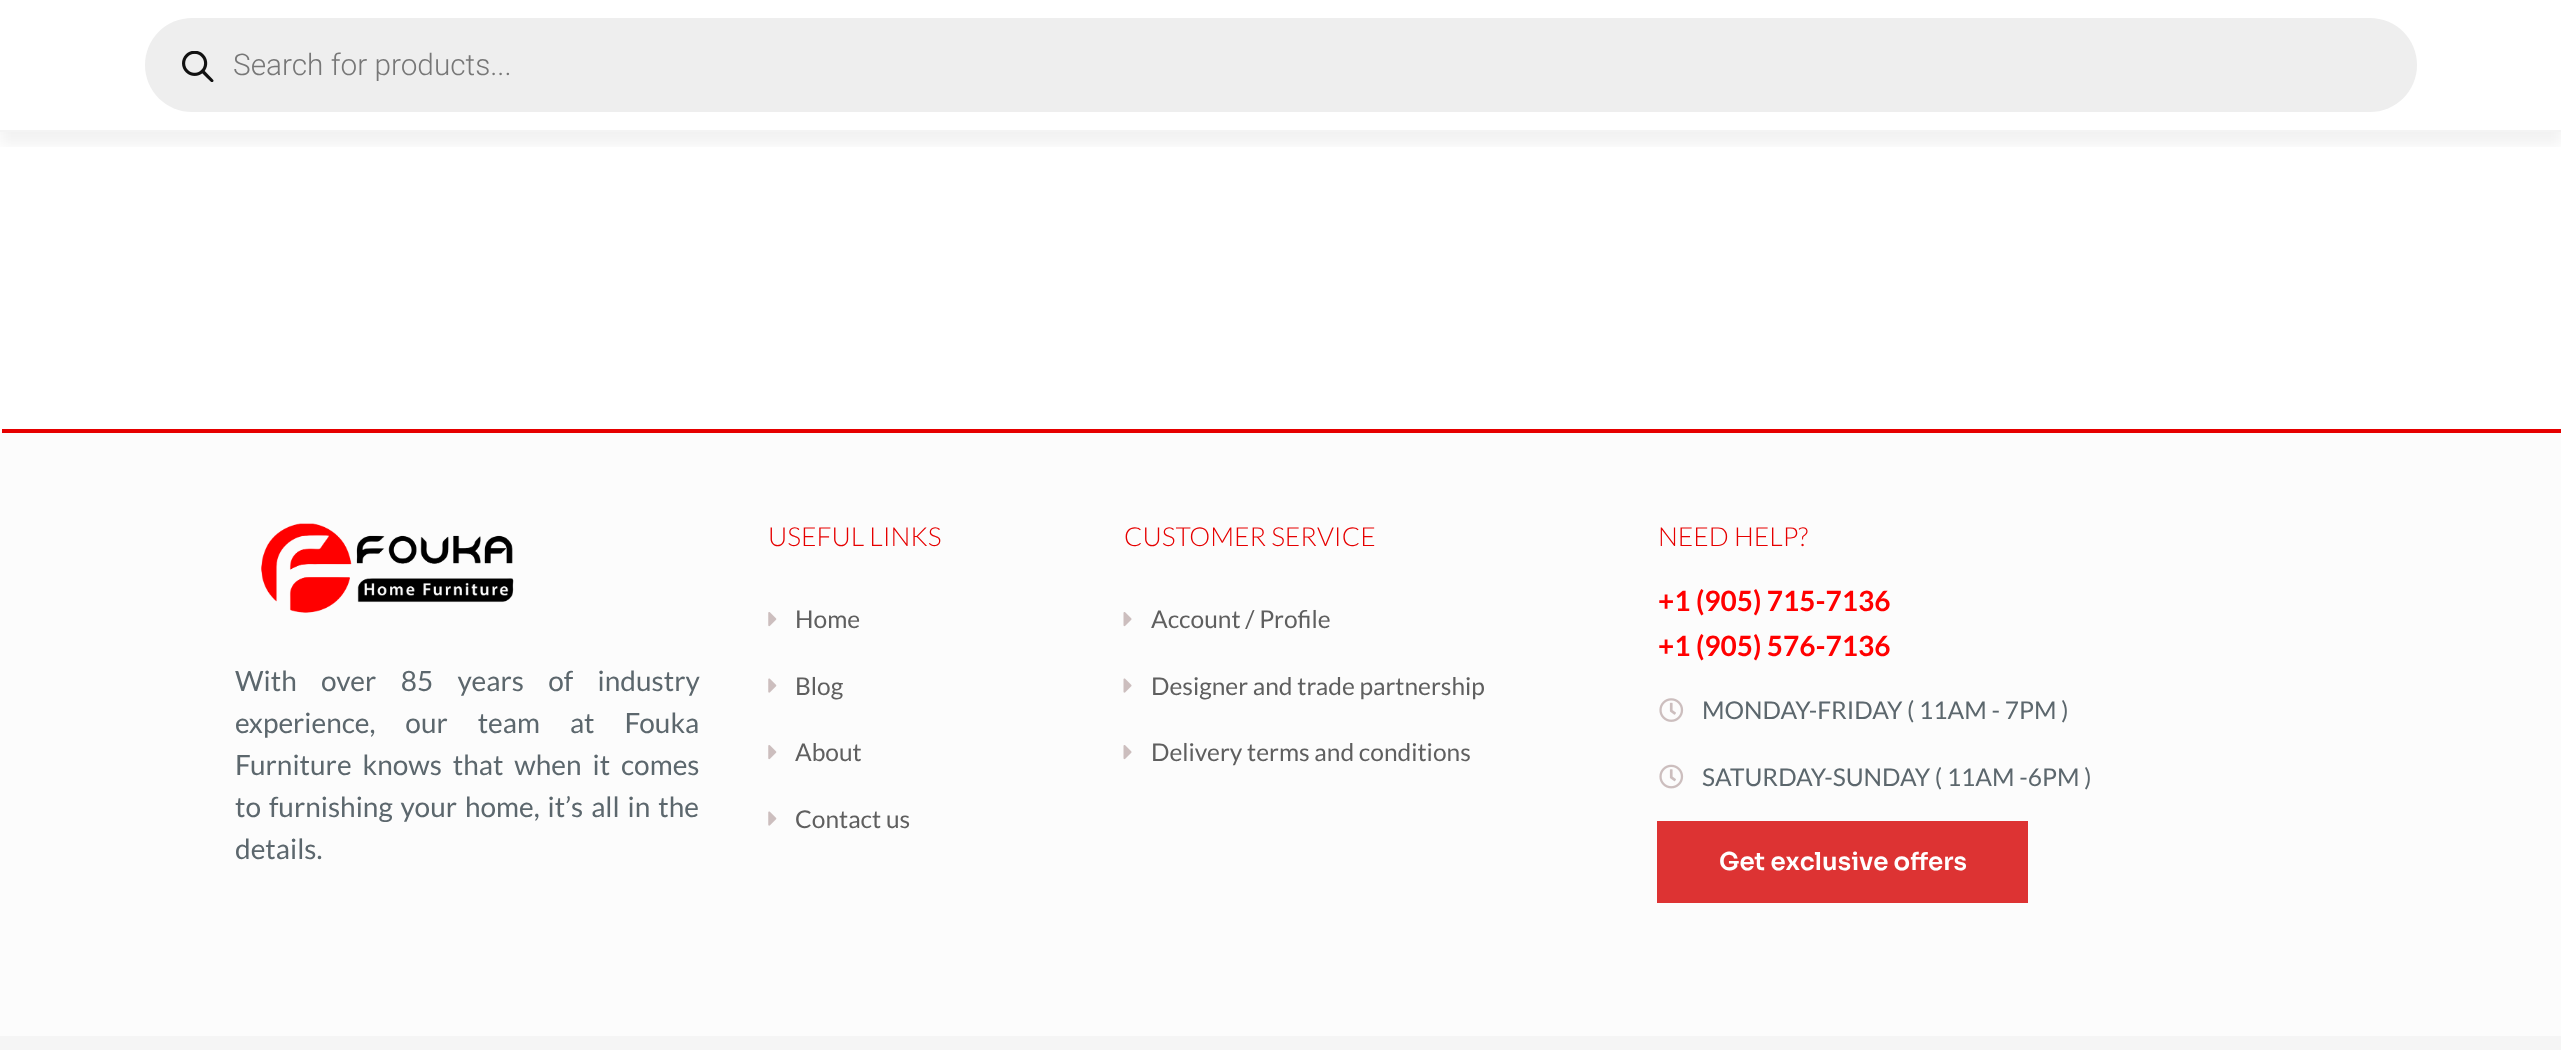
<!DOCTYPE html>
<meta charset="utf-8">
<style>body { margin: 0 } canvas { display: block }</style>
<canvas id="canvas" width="2561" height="1050"></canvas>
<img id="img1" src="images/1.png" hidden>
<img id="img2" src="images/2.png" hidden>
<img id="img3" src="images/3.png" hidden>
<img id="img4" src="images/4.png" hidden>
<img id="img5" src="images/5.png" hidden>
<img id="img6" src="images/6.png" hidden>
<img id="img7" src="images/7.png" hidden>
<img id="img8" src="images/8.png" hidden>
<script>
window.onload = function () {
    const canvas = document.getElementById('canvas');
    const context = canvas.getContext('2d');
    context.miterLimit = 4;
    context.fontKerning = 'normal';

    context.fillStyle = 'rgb(255, 255, 255)';
    context.fillRect(0, 0, 2561, 1050);
    context.save();
    context.beginPath();
    context.rect(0, 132, 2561, 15);
    context.clip();
    context.fillStyle = 'rgba(0, 0, 0, 0.05)';
    context.filter = 'blur(7px)';
    context.beginPath();
    context.rect(0, 14, 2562, 131);
    context.fill();
    context.filter = 'none';
    context.restore();
    context.fillStyle = 'rgb(244, 244, 244)';
    context.fillRect(0, 130, 2561, 2);
    context.fillStyle = 'rgb(238, 238, 238)';
    context.beginPath();
    context.roundRect(145, 18, 2272, 94, 47);
    context.fill();
    context.drawImage(document.getElementById('img1'), 182, 51, 32, 31);
    context.fillStyle = 'rgb(252, 252, 252)';
    context.beginPath();
    context.moveTo(4, 432);
    context.lineTo(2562, 432);
    context.lineTo(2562, 1036);
    context.lineTo(0, 1036);
    context.lineTo(0, 432);
    context.closePath();
    context.fill();
    context.fillStyle = 'rgb(230, 0, 0)';
    context.fillRect(2, 429, 2559, 4);
    context.drawImage(document.getElementById('img2'), 261, 523, 253, 90);
    context.drawImage(document.getElementById('img3'), 768, 612, 9, 15);
    context.drawImage(document.getElementById('img4'), 768, 678, 9, 15);
    context.drawImage(document.getElementById('img3'), 768, 745, 9, 15);
    context.drawImage(document.getElementById('img4'), 768, 811, 9, 15);
    context.drawImage(document.getElementById('img5'), 1123, 612, 9, 15);
    context.drawImage(document.getElementById('img6'), 1123, 678, 9, 15);
    context.drawImage(document.getElementById('img5'), 1123, 745, 9, 15);
    context.drawImage(document.getElementById('img7'), 1659, 698, 25, 24);
    context.drawImage(document.getElementById('img8'), 1659, 764, 25, 25);
    context.fillStyle = 'rgb(221, 51, 51)';
    context.fillRect(1657, 821, 371, 82);
    context.fillStyle = 'rgb(245, 245, 245)';
    context.fillRect(0, 1036, 2561, 14);
    context.font = '300 29.75px Roboto';
    context.fillStyle = 'rgb(119, 119, 119)';
    context.fillText('Search for products...', 233, 75);
    context.wordSpacing = '19px';
    context.font = '28px Lato';
    context.fillStyle = 'rgb(92, 103, 109)';
    context.fillText('With over 85 years of industry', 235, 691);
    context.wordSpacing = '24.5px';
    context.fillText('experience, our team at Fouka', 235, 733);
    context.wordSpacing = '5.5px';
    context.fillText('Furniture knows that when it comes', 235, 775);
    context.wordSpacing = '2.5px';
    context.fillText('to furnishing your home, it’s all in the', 235, 817);
    context.wordSpacing = '0px';
    context.fillText('details.', 235, 859);
    context.font = '300 26.25px Lato';
    context.fillStyle = 'rgb(230, 0, 0)';
    context.fillText('USEFUL LINKS', 768, 546);
    context.font = '24.5px Lato';
    context.fillStyle = 'rgb(95, 95, 95)';
    context.fillText('Home', 795, 628);
    context.fillText('Blog', 795, 695);
    context.fillText('About', 795, 761);
    context.fillText('Contact us', 795, 828);
    context.font = '300 26.25px Lato';
    context.fillStyle = 'rgb(230, 0, 0)';
    context.fillText('CUSTOMER SERVICE', 1124, 546);
    context.font = '24.5px Lato';
    context.fillStyle = 'rgb(95, 95, 95)';
    context.fillText('Account / Profile', 1151, 628);
    context.fillText('Designer and trade partnership', 1151, 695);
    context.fillText('Delivery terms and conditions', 1151, 761);
    context.font = '300 26.25px Lato';
    context.fillStyle = 'rgb(230, 0, 0)';
    context.fillText('NEED HELP?', 1658, 546);
    context.font = 'bold 28px Lato';
    context.fillStyle = 'rgb(255, 0, 0)';
    context.fillText('+1 (905) 715-7136', 1658, 611);
    context.fillText('+1 (905) 576-7136', 1658, 656);
    context.font = '24.5px Lato';
    context.fillStyle = 'rgb(92, 103, 109)';
    context.fillText('MONDAY-FRIDAY ( 11AM - 7PM )', 1702, 719);
    context.fillText('SATURDAY-SUNDAY ( 11AM -6PM )', 1702, 786);
    context.font = '600 24.5px Sora';
    context.fillStyle = 'rgb(255, 255, 255)';
    context.fillText('Get exclusive offers', 1719, 870);
};
</script>
